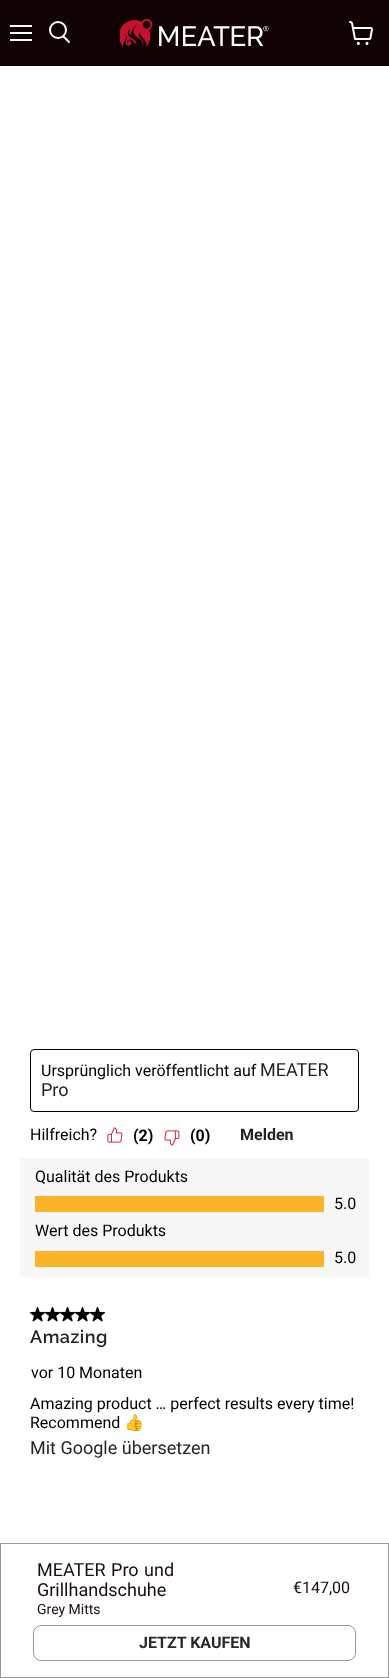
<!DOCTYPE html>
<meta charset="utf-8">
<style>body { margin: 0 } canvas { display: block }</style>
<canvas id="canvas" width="389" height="1678"></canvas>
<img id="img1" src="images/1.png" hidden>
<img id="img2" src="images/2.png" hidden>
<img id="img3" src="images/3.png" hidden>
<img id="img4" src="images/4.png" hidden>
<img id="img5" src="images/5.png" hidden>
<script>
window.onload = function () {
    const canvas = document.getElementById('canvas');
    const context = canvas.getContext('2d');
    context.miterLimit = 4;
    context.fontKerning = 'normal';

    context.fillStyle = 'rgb(255, 255, 255)';
    context.fillRect(0, 0, 389, 1678);
    context.fillStyle = 'rgb(17, 3, 3)';
    context.fillRect(0, 0, 389, 66);
    context.fillStyle = 'rgb(255, 255, 255)';
    context.fillRect(10, 25, 22, 2);
    context.fillRect(10, 32, 22, 2);
    context.fillRect(10, 39, 22, 2);
    context.beginPath();
    context.moveTo(69, 42);
    context.lineTo(63.5, 36.5);
    context.strokeStyle = 'rgb(255, 255, 255)';
    context.lineWidth = 2;
    context.lineCap = 'round';
    context.stroke();
    context.beginPath();
    context.arc(58, 30, 8, 0, 2 * Math.PI);
    context.stroke();
    context.drawImage(document.getElementById('img1'), 120, 19, 149, 28);
    context.drawImage(document.getElementById('img2'), 349, 21, 24, 24);
    context.beginPath();
    context.roundRect(30.5, 1049.5, 328, 62, 3.5);
    context.strokeStyle = 'rgb(0, 0, 0)';
    context.lineWidth = 1;
    context.stroke();
    context.drawImage(document.getElementById('img3'), 107, 1127, 16, 16);
    context.drawImage(document.getElementById('img4'), 164, 1130, 16, 16);
    context.fillStyle = 'rgb(247, 247, 247)';
    context.fillRect(20, 1158, 349, 119);
    context.fillStyle = 'rgb(251, 180, 40)';
    context.fillRect(35, 1196, 289, 16);
    context.fillRect(35, 1251, 289, 16);
    context.drawImage(document.getElementById('img5'), 30, 1307, 15, 15);
    context.drawImage(document.getElementById('img5'), 45, 1307, 15, 15);
    context.drawImage(document.getElementById('img5'), 60, 1307, 15, 15);
    context.drawImage(document.getElementById('img5'), 75, 1307, 15, 15);
    context.drawImage(document.getElementById('img5'), 90, 1307, 15, 15);
    context.strokeStyle = 'rgb(153, 153, 153)';
    context.strokeRect(0.5, 1543.5, 388, 134);
    context.beginPath();
    context.roundRect(33.5, 1625.5, 322, 35, 7.5);
    context.stroke();
    context.font = '16px Roboto';
    context.fillStyle = 'rgb(0, 0, 0)';
    context.fillText('Ursprünglich veröffentlicht auf', 41, 1076);
    context.font = '18px Roboto';
    context.fillStyle = 'rgb(34, 35, 35)';
    context.fillText('MEATER', 260, 1076);
    context.fillText('Pro', 41, 1096);
    context.font = '16px Roboto';
    context.fillStyle = 'rgb(0, 0, 0)';
    context.fillText('Hilfreich?', 30, 1140);
    context.font = 'bold 16px Roboto';
    context.fillText('(2)', 133, 1141);
    context.fillText('(0)', 190, 1141);
    context.fillStyle = 'rgb(34, 35, 35)';
    context.fillText('Melden', 240, 1140);
    context.font = '16px Roboto';
    context.fillStyle = 'rgb(0, 0, 0)';
    context.fillText('Qualität des Produkts', 35, 1182);
    context.fillText('5.0', 334, 1209);
    context.fillText('Wert des Produkts', 35, 1236);
    context.fillText('5.0', 334, 1263);
    context.letterSpacing = '0.5px';
    context.font = '600 18px Raleway';
    context.fillStyle = 'rgb(34, 35, 35)';
    context.fillText('Amazing', 30, 1343);
    context.letterSpacing = '0px';
    context.font = '16px Roboto';
    context.fillStyle = 'rgb(0, 0, 0)';
    context.fillText('vor 10 Monaten', 31, 1378);
    context.fillText('Amazing product … perfect results every time!', 30, 1409);
    context.fillText('Recommend', 30, 1428);
    context.font = '16px Noto Color Emoji';
    context.fillText('👍', 124, 1428);
    context.font = '18px Roboto';
    context.fillStyle = 'rgb(34, 35, 35)';
    context.fillText('Mit Google übersetzen', 30, 1454);
    context.wordSpacing = '1px';
    context.fillStyle = 'rgb(27, 12, 12)';
    context.fillText('MEATER Pro und', 37, 1576);
    context.wordSpacing = '0px';
    context.fillText('Grillhandschuhe', 37, 1596);
    context.font = '14px Roboto';
    context.fillText('Grey Mitts', 37, 1614);
    context.font = '16px Roboto';
    context.fillText('€147,00', 293, 1593);
    context.font = 'bold 16px Roboto';
    context.fillStyle = 'rgb(40, 40, 40)';
    context.fillText('JETZT KAUFEN', 139, 1648);
};
</script>
